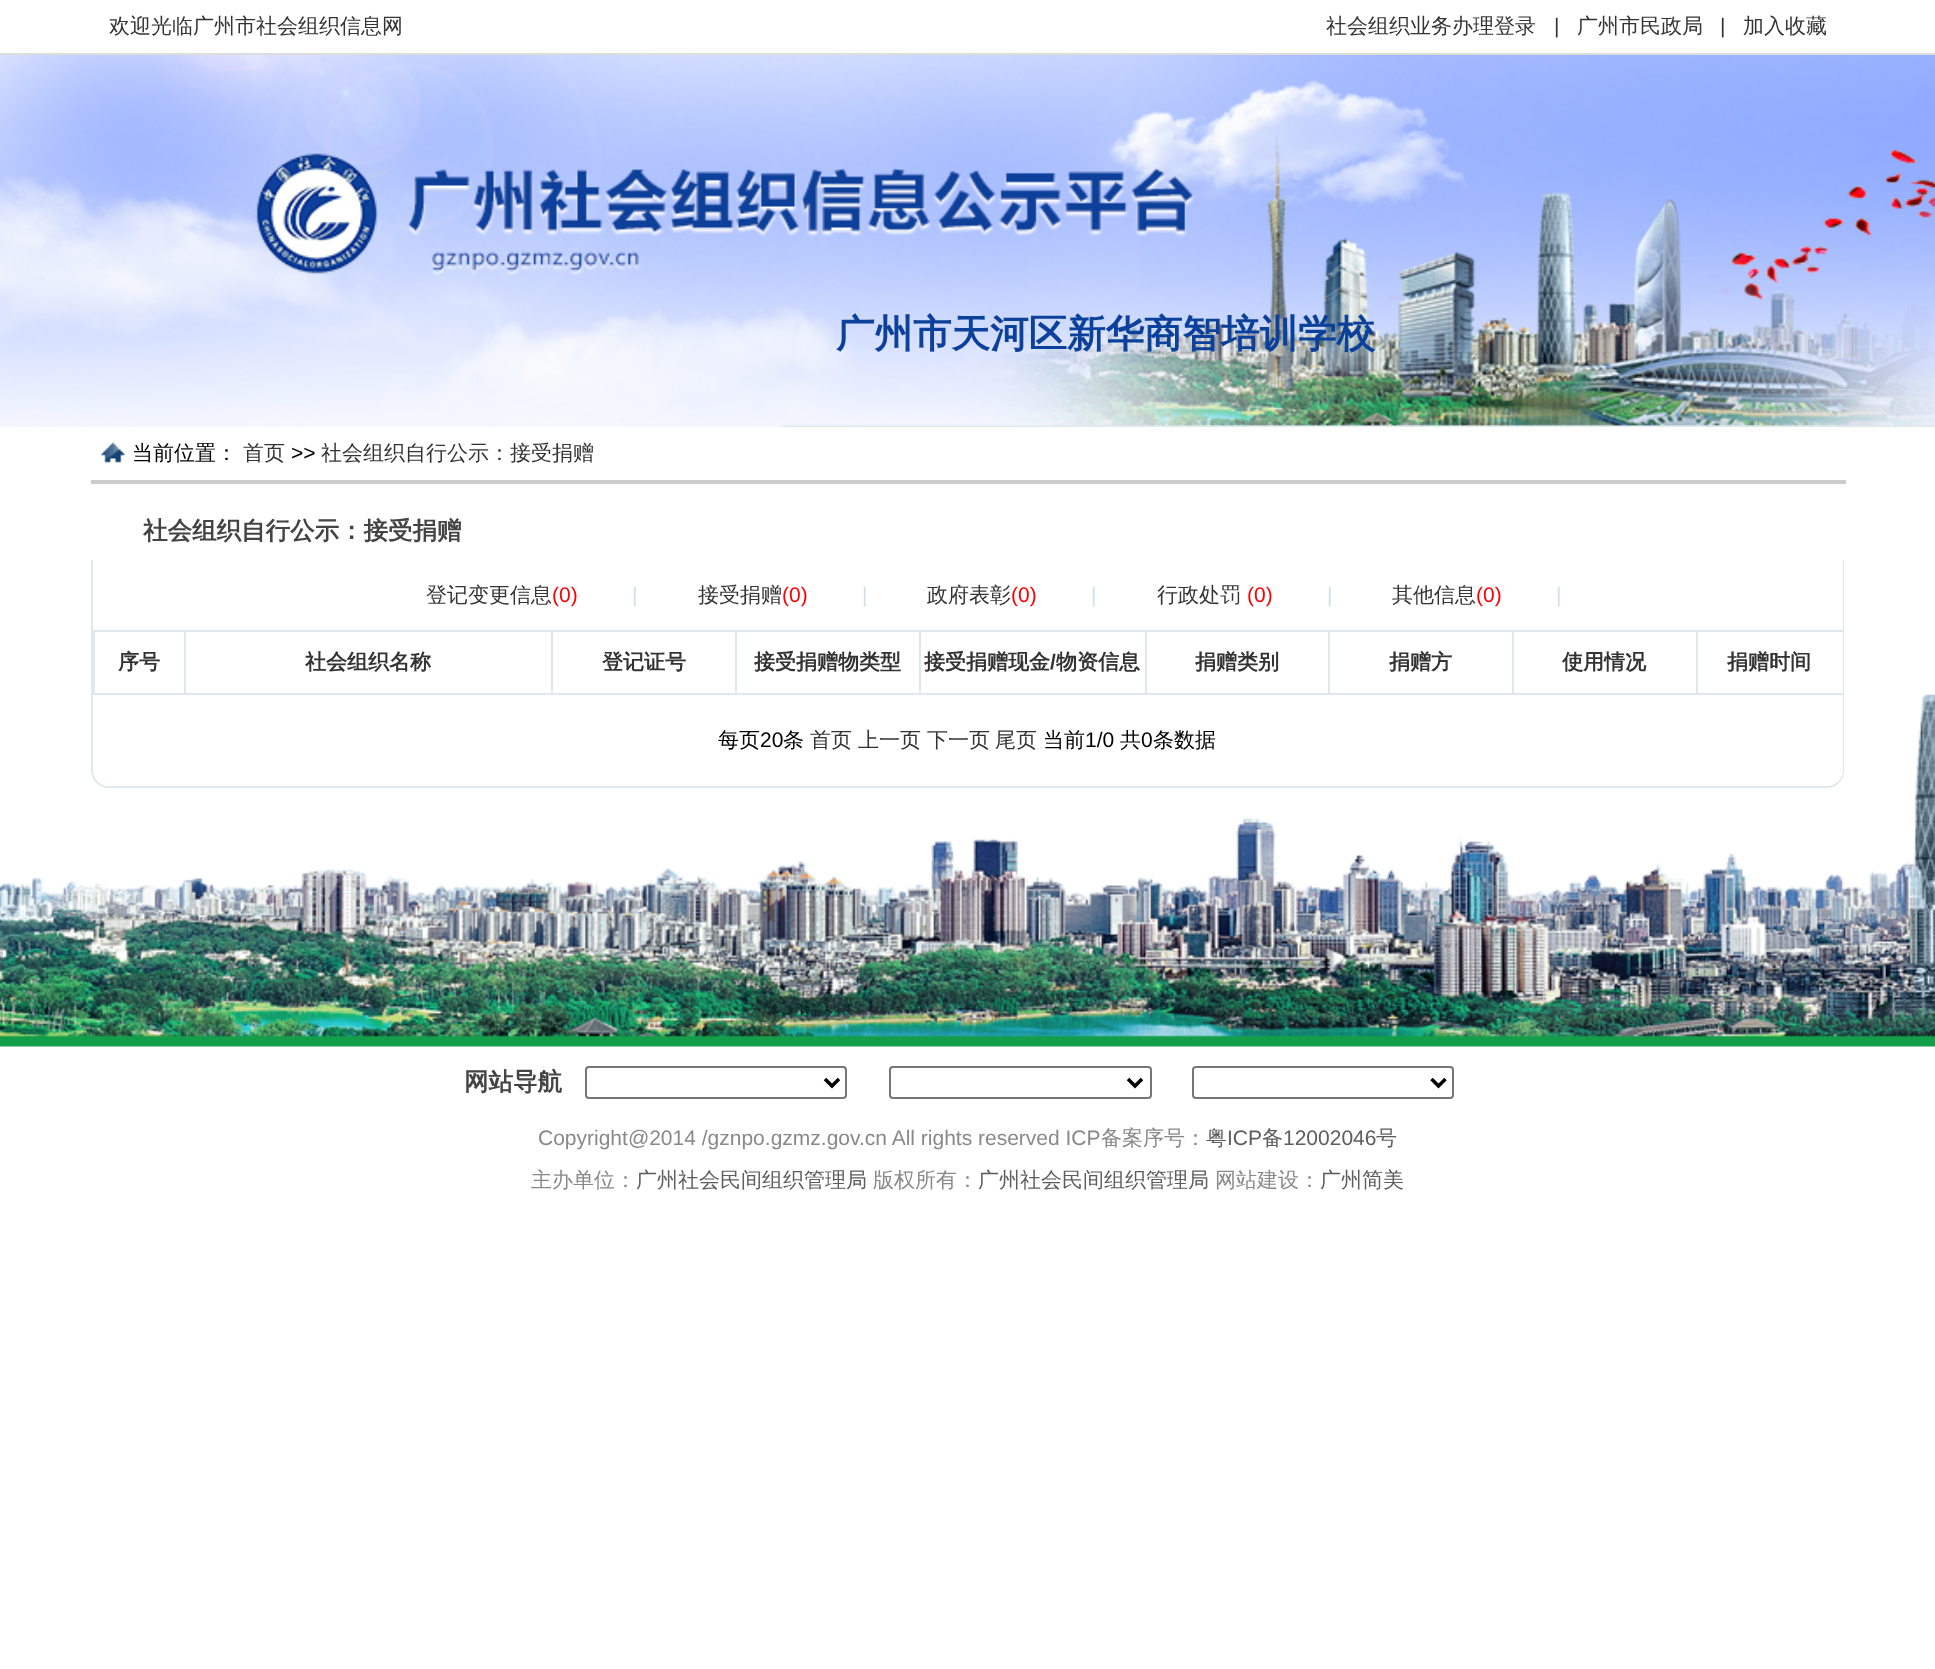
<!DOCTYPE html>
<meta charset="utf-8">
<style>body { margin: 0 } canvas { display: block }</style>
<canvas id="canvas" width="1935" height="1669"></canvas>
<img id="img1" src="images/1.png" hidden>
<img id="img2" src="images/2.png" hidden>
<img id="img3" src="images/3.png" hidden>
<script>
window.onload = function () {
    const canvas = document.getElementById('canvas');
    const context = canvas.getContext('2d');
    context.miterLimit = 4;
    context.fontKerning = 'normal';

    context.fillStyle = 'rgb(255, 255, 255)';
    context.fillRect(0, 0, 1935, 1669);
    context.fillStyle = 'rgb(221, 221, 221)';
    context.fillRect(0, 53, 1935, 2);
    context.drawImage(document.getElementById('img1'), 0, 55, 1935, 372);
    context.drawImage(document.getElementById('img2'), 101, 442, 24, 21);
    context.fillStyle = 'rgb(204, 204, 204)';
    context.fillRect(91, 480, 1755, 4);
    context.fillStyle = 'rgb(224, 232, 239)';
    context.beginPath();
    context.moveTo(91, 560);
    context.lineTo(1844, 560);
    context.lineTo(1844, 770);
    context.bezierCurveTo(1844, 780, 1837, 788, 1827, 788);
    context.lineTo(108, 788);
    context.bezierCurveTo(99, 788, 91, 780, 91, 770);
    context.closePath();
    context.moveTo(93, 560);
    context.lineTo(1843, 560);
    context.lineTo(1843, 770);
    context.bezierCurveTo(1843, 779, 1836, 786, 1827, 786);
    context.lineTo(108, 786);
    context.bezierCurveTo(100, 786, 93, 779, 93, 770);
    context.closePath();
    context.fill('evenodd');
    context.fillRect(93, 630, 1750, 2);
    context.fillRect(93, 693, 1750, 2);
    context.fillRect(93, 632, 2, 63);
    context.fillRect(184, 632, 2, 63);
    context.fillRect(551, 632, 2, 63);
    context.fillRect(735, 632, 2, 63);
    context.fillRect(919, 632, 2, 63);
    context.fillRect(1145, 632, 2, 63);
    context.fillRect(1328, 632, 2, 63);
    context.fillRect(1512, 632, 2, 63);
    context.fillRect(1696, 632, 2, 63);
    context.beginPath();
    context.roundRect(586, 1067, 260, 31, 3);
    context.strokeStyle = 'rgb(118, 118, 118)';
    context.lineWidth = 2;
    context.stroke();
    context.beginPath();
    context.moveTo(825, 1079);
    context.lineTo(832, 1086);
    context.lineTo(839, 1079);
    context.strokeStyle = 'rgb(0, 0, 0)';
    context.lineWidth = 3.5;
    context.stroke();
    context.beginPath();
    context.roundRect(890, 1067, 261, 31, 3);
    context.strokeStyle = 'rgb(118, 118, 118)';
    context.lineWidth = 2;
    context.stroke();
    context.beginPath();
    context.moveTo(1128, 1079);
    context.lineTo(1135, 1086);
    context.lineTo(1142, 1079);
    context.strokeStyle = 'rgb(0, 0, 0)';
    context.lineWidth = 3.5;
    context.stroke();
    context.beginPath();
    context.roundRect(1193, 1067, 260, 31, 3);
    context.strokeStyle = 'rgb(118, 118, 118)';
    context.lineWidth = 2;
    context.stroke();
    context.beginPath();
    context.moveTo(1431.5, 1079);
    context.lineTo(1438.5, 1086);
    context.lineTo(1445.5, 1079);
    context.strokeStyle = 'rgb(0, 0, 0)';
    context.lineWidth = 3.5;
    context.stroke();
    context.font = '500 21px WenQuanYi Zen Hei';
    context.fillStyle = 'rgb(51, 51, 51)';
    context.fillText('欢迎光临广州市社会组织信息网', 109, 33);
    context.fillText('社会组织业务办理登录', 1326, 33);
    context.font = '21px Liberation Sans';
    context.fillText('|', 1554, 33);
    context.font = '500 21px WenQuanYi Zen Hei';
    context.fillText('广州市民政局', 1577, 33);
    context.font = '21px Liberation Sans';
    context.fillText('|', 1720, 33);
    context.font = '500 21px WenQuanYi Zen Hei';
    context.fillText('加入收藏', 1743, 33);
    context.font = 'bold 38.5px WenQuanYi Zen Hei';
    context.fillStyle = 'rgb(11, 64, 155)';
    context.fillText('广州市天河区新华商智培训学校', 836, 347);
    context.font = '500 21px WenQuanYi Zen Hei';
    context.fillStyle = 'rgb(0, 0, 0)';
    context.fillText('当前位置：', 132, 460);
    context.fillStyle = 'rgb(51, 51, 51)';
    context.fillText('首页', 243, 460);
    context.font = '21px Liberation Sans';
    context.fillStyle = 'rgb(0, 0, 0)';
    context.fillText('>>', 291, 460);
    context.font = '500 21px WenQuanYi Zen Hei';
    context.fillStyle = 'rgb(51, 51, 51)';
    context.fillText('社会组织自行公示：接受捐赠', 321, 460);
    context.font = 'bold 24.5px WenQuanYi Zen Hei';
    context.fillStyle = 'rgb(68, 68, 68)';
    context.fillText('社会组织自行公示：接受捐赠', 143, 539);
    context.font = '500 21px WenQuanYi Zen Hei';
    context.fillStyle = 'rgb(51, 51, 51)';
    context.fillText('登记变更信息', 426, 602);
    context.font = '21px Liberation Sans';
    context.fillStyle = 'rgb(255, 0, 0)';
    context.fillText('(0)', 552, 602);
    context.fillStyle = 'rgb(208, 224, 237)';
    context.fillText('|', 632, 602);
    context.font = '500 21px WenQuanYi Zen Hei';
    context.fillStyle = 'rgb(51, 51, 51)';
    context.fillText('接受捐赠', 698, 602);
    context.font = '21px Liberation Sans';
    context.fillStyle = 'rgb(255, 0, 0)';
    context.fillText('(0)', 782, 602);
    context.fillStyle = 'rgb(208, 224, 237)';
    context.fillText('|', 862, 602);
    context.font = '500 21px WenQuanYi Zen Hei';
    context.fillStyle = 'rgb(51, 51, 51)';
    context.fillText('政府表彰', 927, 602);
    context.font = '21px Liberation Sans';
    context.fillStyle = 'rgb(255, 0, 0)';
    context.fillText('(0)', 1011, 602);
    context.fillStyle = 'rgb(208, 224, 237)';
    context.fillText('|', 1091, 602);
    context.font = '500 21px WenQuanYi Zen Hei';
    context.fillStyle = 'rgb(51, 51, 51)';
    context.fillText('行政处罚', 1157, 602);
    context.font = '21px Liberation Sans';
    context.fillStyle = 'rgb(255, 0, 0)';
    context.fillText('(0)', 1247, 602);
    context.fillStyle = 'rgb(208, 224, 237)';
    context.fillText('|', 1327, 602);
    context.font = '500 21px WenQuanYi Zen Hei';
    context.fillStyle = 'rgb(51, 51, 51)';
    context.fillText('其他信息', 1392, 602);
    context.font = '21px Liberation Sans';
    context.fillStyle = 'rgb(255, 0, 0)';
    context.fillText('(0)', 1476, 602);
    context.fillStyle = 'rgb(208, 224, 237)';
    context.fillText('|', 1556, 602);
    context.font = 'bold 21px WenQuanYi Zen Hei';
    context.fillStyle = 'rgb(51, 51, 51)';
    context.fillText('序号', 118, 669);
    context.fillText('社会组织名称', 305, 669);
    context.fillText('登记证号', 602, 669);
    context.fillText('接受捐赠物类型', 754, 669);
    context.fillText('接受捐赠现金', 924, 669);
    context.font = 'bold 21px Liberation Sans';
    context.fillText('/', 1050, 669);
    context.font = 'bold 21px WenQuanYi Zen Hei';
    context.fillText('物资信息', 1056, 669);
    context.fillText('捐赠类别', 1195, 669);
    context.fillText('捐赠方', 1389, 669);
    context.fillText('使用情况', 1562, 669);
    context.fillText('捐赠时间', 1727, 669);
    context.font = '500 21px WenQuanYi Zen Hei';
    context.fillStyle = 'rgb(0, 0, 0)';
    context.fillText('每页', 718, 747);
    context.font = '21px Liberation Sans';
    context.fillText('20', 760, 747);
    context.font = '500 21px WenQuanYi Zen Hei';
    context.fillText('条', 783, 747);
    context.fillStyle = 'rgb(51, 51, 51)';
    context.fillText('首页', 810, 747);
    context.fillText('上一页', 858, 747);
    context.fillText('下一页', 927, 747);
    context.fillText('尾页', 995, 747);
    context.fillStyle = 'rgb(0, 0, 0)';
    context.fillText('当前', 1043, 747);
    context.font = '21px Liberation Sans';
    context.fillText('1/0', 1085, 747);
    context.save();
    context.beginPath();
    context.rect(128, 730, 1680, 21);
    context.clip();
    context.font = '500 21px WenQuanYi Zen Hei';
    context.fillText('共', 1120, 747);
    context.restore();
    context.fillText('0', 1141, 747);
    context.font = '500 21px WenQuanYi Zen Hei';
    context.fillText('条数据', 1153, 747);
    context.drawImage(document.getElementById('img3'), 0, 694, 1935, 353);
    context.font = 'bold 24.5px WenQuanYi Zen Hei';
    context.fillStyle = 'rgb(68, 68, 68)';
    context.fillText('网站导航', 464, 1090);
    context.font = '21px Liberation Sans';
    context.fillStyle = 'rgb(137, 137, 137)';
    context.fillText('Copyright@2014 /gznpo.gzmz.gov.cn All rights reserved ICP', 538, 1145);
    context.font = '500 21px WenQuanYi Zen Hei';
    context.fillText('备案序号：', 1101, 1145);
    context.fillStyle = 'rgb(93, 93, 93)';
    context.fillText('粤', 1206, 1145);
    context.font = '21px Liberation Sans';
    context.fillText('ICP', 1227, 1145);
    context.font = '500 21px WenQuanYi Zen Hei';
    context.fillText('备', 1262, 1145);
    context.font = '21px Liberation Sans';
    context.fillText('12002046', 1283, 1145);
    context.font = '500 21px WenQuanYi Zen Hei';
    context.fillText('号', 1376, 1145);
    context.fillStyle = 'rgb(137, 137, 137)';
    context.fillText('主办单位：', 531, 1187);
    context.fillStyle = 'rgb(93, 93, 93)';
    context.fillText('广州社会民间组织管理局', 636, 1187);
    context.fillStyle = 'rgb(137, 137, 137)';
    context.fillText('版权所有：', 873, 1187);
    context.fillStyle = 'rgb(93, 93, 93)';
    context.fillText('广州社会民间组织管理局', 978, 1187);
    context.fillStyle = 'rgb(137, 137, 137)';
    context.fillText('网站建设：', 1215, 1187);
    context.fillStyle = 'rgb(93, 93, 93)';
    context.fillText('广州简美', 1320, 1187);
};
</script>
